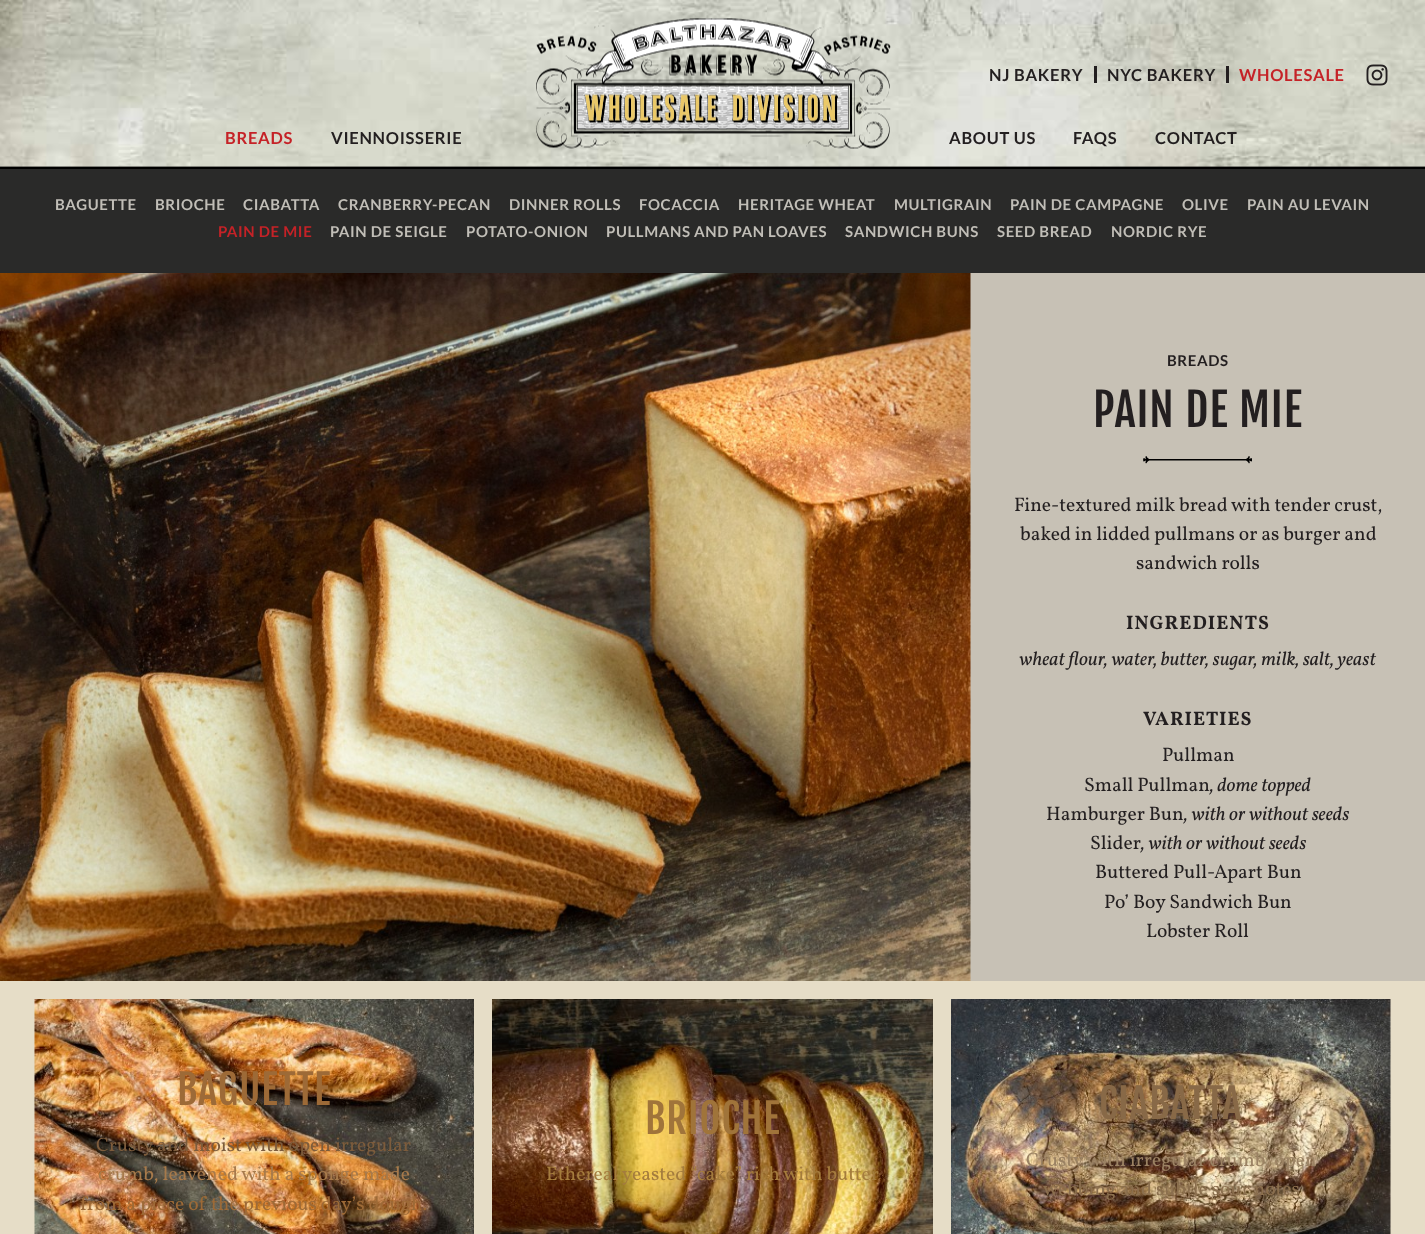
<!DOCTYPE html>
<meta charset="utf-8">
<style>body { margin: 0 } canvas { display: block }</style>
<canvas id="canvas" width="1425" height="1234"></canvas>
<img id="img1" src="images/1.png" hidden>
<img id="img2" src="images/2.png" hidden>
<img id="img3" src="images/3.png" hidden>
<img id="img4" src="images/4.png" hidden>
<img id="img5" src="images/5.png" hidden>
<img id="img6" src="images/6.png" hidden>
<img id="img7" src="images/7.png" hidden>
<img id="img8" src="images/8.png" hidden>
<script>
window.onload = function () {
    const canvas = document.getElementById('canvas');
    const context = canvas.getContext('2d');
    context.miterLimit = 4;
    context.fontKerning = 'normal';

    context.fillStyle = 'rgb(199, 193, 181)';
    context.fillRect(0, 0, 1425, 1234);
    context.fillStyle = 'rgb(42, 42, 41)';
    context.fillRect(0, 166, 1425, 107);
    context.drawImage(document.getElementById('img1'), 0, 0, 1425, 167);
    context.fillStyle = 'rgb(0, 0, 0)';
    context.fillRect(0, 167, 1425, 2);
    context.drawImage(document.getElementById('img2'), 536, 18, 355, 131);
    context.fillStyle = 'rgb(35, 31, 32)';
    context.fillRect(1094, 66, 3, 17);
    context.fillRect(1226, 66, 3, 17);
    context.drawImage(document.getElementById('img3'), 1366, 64, 22, 22);
    context.drawImage(document.getElementById('img4'), 0, 273, 971, 708);
    context.drawImage(document.getElementById('img5'), 1143, 456, 109, 8);
    context.fillStyle = 'rgb(230, 221, 199)';
    context.fillRect(0, 981, 1425, 253);
    context.drawImage(document.getElementById('img6'), 34, 999, 440, 235);
    context.drawImage(document.getElementById('img7'), 492, 999, 441, 235);
    context.drawImage(document.getElementById('img8'), 951, 999, 440, 235);
    context.letterSpacing = '0.7px';
    context.font = 'bold 16.5px Lato';
    context.fillStyle = 'rgb(35, 31, 32)';
    context.fillText('NJ BAKERY', 989, 81);
    context.fillText('NYC BAKERY', 1107, 81);
    context.fillStyle = 'rgb(197, 34, 39)';
    context.fillText('WHOLESALE', 1239, 81);
    context.fillText('BREADS', 225, 144);
    context.fillStyle = 'rgb(35, 31, 32)';
    context.fillText('VIENNOISSERIE', 331, 144);
    context.fillText('ABOUT US', 949, 144);
    context.fillText('FAQS', 1073, 144);
    context.fillText('CONTACT', 1155, 144);
    context.letterSpacing = '0.6px';
    context.font = 'bold 15px Lato';
    context.fillStyle = 'rgb(193, 190, 183)';
    context.fillText('BAGUETTE', 55, 210);
    context.fillText('BRIOCHE', 155, 210);
    context.fillText('CIABATTA', 243, 210);
    context.fillText('CRANBERRY-PECAN', 338, 210);
    context.fillText('DINNER ROLLS', 509, 210);
    context.fillText('FOCACCIA', 639, 210);
    context.fillText('HERITAGE WHEAT', 738, 210);
    context.fillText('MULTIGRAIN', 894, 210);
    context.fillText('PAIN DE CAMPAGNE', 1010, 210);
    context.fillText('OLIVE', 1182, 210);
    context.fillText('PAIN AU LEVAIN', 1247, 210);
    context.fillStyle = 'rgb(197, 34, 39)';
    context.fillText('PAIN DE MIE', 218, 237);
    context.fillStyle = 'rgb(193, 190, 183)';
    context.fillText('PAIN DE SEIGLE', 330, 237);
    context.fillText('POTATO-ONION', 466, 237);
    context.fillText('PULLMANS AND PAN LOAVES', 606, 237);
    context.fillText('SANDWICH BUNS', 845, 237);
    context.fillText('SEED BREAD', 997, 237);
    context.fillText('NORDIC RYE', 1111, 237);
    context.fillStyle = 'rgb(35, 31, 32)';
    context.fillText('BREADS', 1167, 366);
    context.letterSpacing = '0.9px';
    context.font = '45px Fjalla One';
    context.fillText('PAIN DE MIE', 1093, 427);
    context.letterSpacing = '0px';
    context.font = '19.5px Vollkorn';
    context.fillText('Fine-textured milk bread with tender crust,', 1014, 511);
    context.fillText('baked in lidded pullmans or as burger and', 1020, 540);
    context.fillText('sandwich rolls', 1136, 569);
    context.letterSpacing = '1px';
    context.font = 'bold 19.5px Vollkorn';
    context.fillText('INGREDIENTS', 1126, 629);
    context.letterSpacing = '0px';
    context.font = 'italic 19.5px Vollkorn';
    context.fillText('wheat flour, water, butter, sugar, milk, salt, yeast', 1019, 665);
    context.letterSpacing = '1px';
    context.font = 'bold 19.5px Vollkorn';
    context.fillText('VARIETIES', 1143, 725);
    context.letterSpacing = '0px';
    context.font = '19.5px Vollkorn';
    context.fillText('Pullman', 1162, 761);
    context.fillText('Small Pullman', 1084, 791);
    context.font = 'italic 19.5px Vollkorn';
    context.fillText(', dome topped', 1210, 791);
    context.font = '19.5px Vollkorn';
    context.fillText('Hamburger Bun', 1046, 820);
    context.font = 'italic 19.5px Vollkorn';
    context.fillText(', with or without seeds', 1184, 820);
    context.font = '19.5px Vollkorn';
    context.fillText('Slider', 1090, 849);
    context.font = 'italic 19.5px Vollkorn';
    context.fillText(', with or without seeds', 1141, 849);
    context.font = '19.5px Vollkorn';
    context.fillText('Buttered Pull-Apart Bun', 1095, 878);
    context.fillText('Po’ Boy Sandwich Bun', 1104, 908);
    context.fillText('Lobster Roll', 1146, 937);
    context.letterSpacing = '0.75px';
    context.font = '40.5px Fjalla One';
    context.fillStyle = 'rgb(157, 106, 55)';
    context.fillText('BAGUETTE', 177, 1105);
    context.letterSpacing = '0px';
    context.font = '19.5px Vollkorn';
    context.fillStyle = 'rgb(125, 92, 60)';
    context.fillText('Crusty and moist with open irregular', 96, 1151);
    context.fillStyle = 'rgb(167, 122, 75)';
    context.fillText('crumb, leavened with a sponge made', 98, 1180);
    context.fillStyle = 'rgb(157, 106, 55)';
    context.fillText('from a piece of the previous day’s dough.', 80, 1210);
    context.letterSpacing = '0.75px';
    context.font = '40.5px Fjalla One';
    context.fillStyle = 'rgb(160, 116, 58)';
    context.fillText('BRIOCHE', 645, 1134);
    context.letterSpacing = '0px';
    context.font = '19.5px Vollkorn';
    context.fillStyle = 'rgb(164, 124, 61)';
    context.fillText('Ethereal yeasted “cake” rich with butter', 546, 1180);
    context.letterSpacing = '0.75px';
    context.font = '40.5px Fjalla One';
    context.fillStyle = 'rgb(136, 105, 71)';
    context.fillText('CIABATTA', 1099, 1119);
    context.letterSpacing = '0px';
    context.font = '19.5px Vollkorn';
    context.fillStyle = 'rgb(155, 130, 99)';
    context.fillText('Crusty with irregular crumb, open', 1026, 1166);
    context.fillStyle = 'rgb(139, 111, 78)';
    context.fillText('webbing and subtle sour notes', 1043, 1195);
};
</script>
